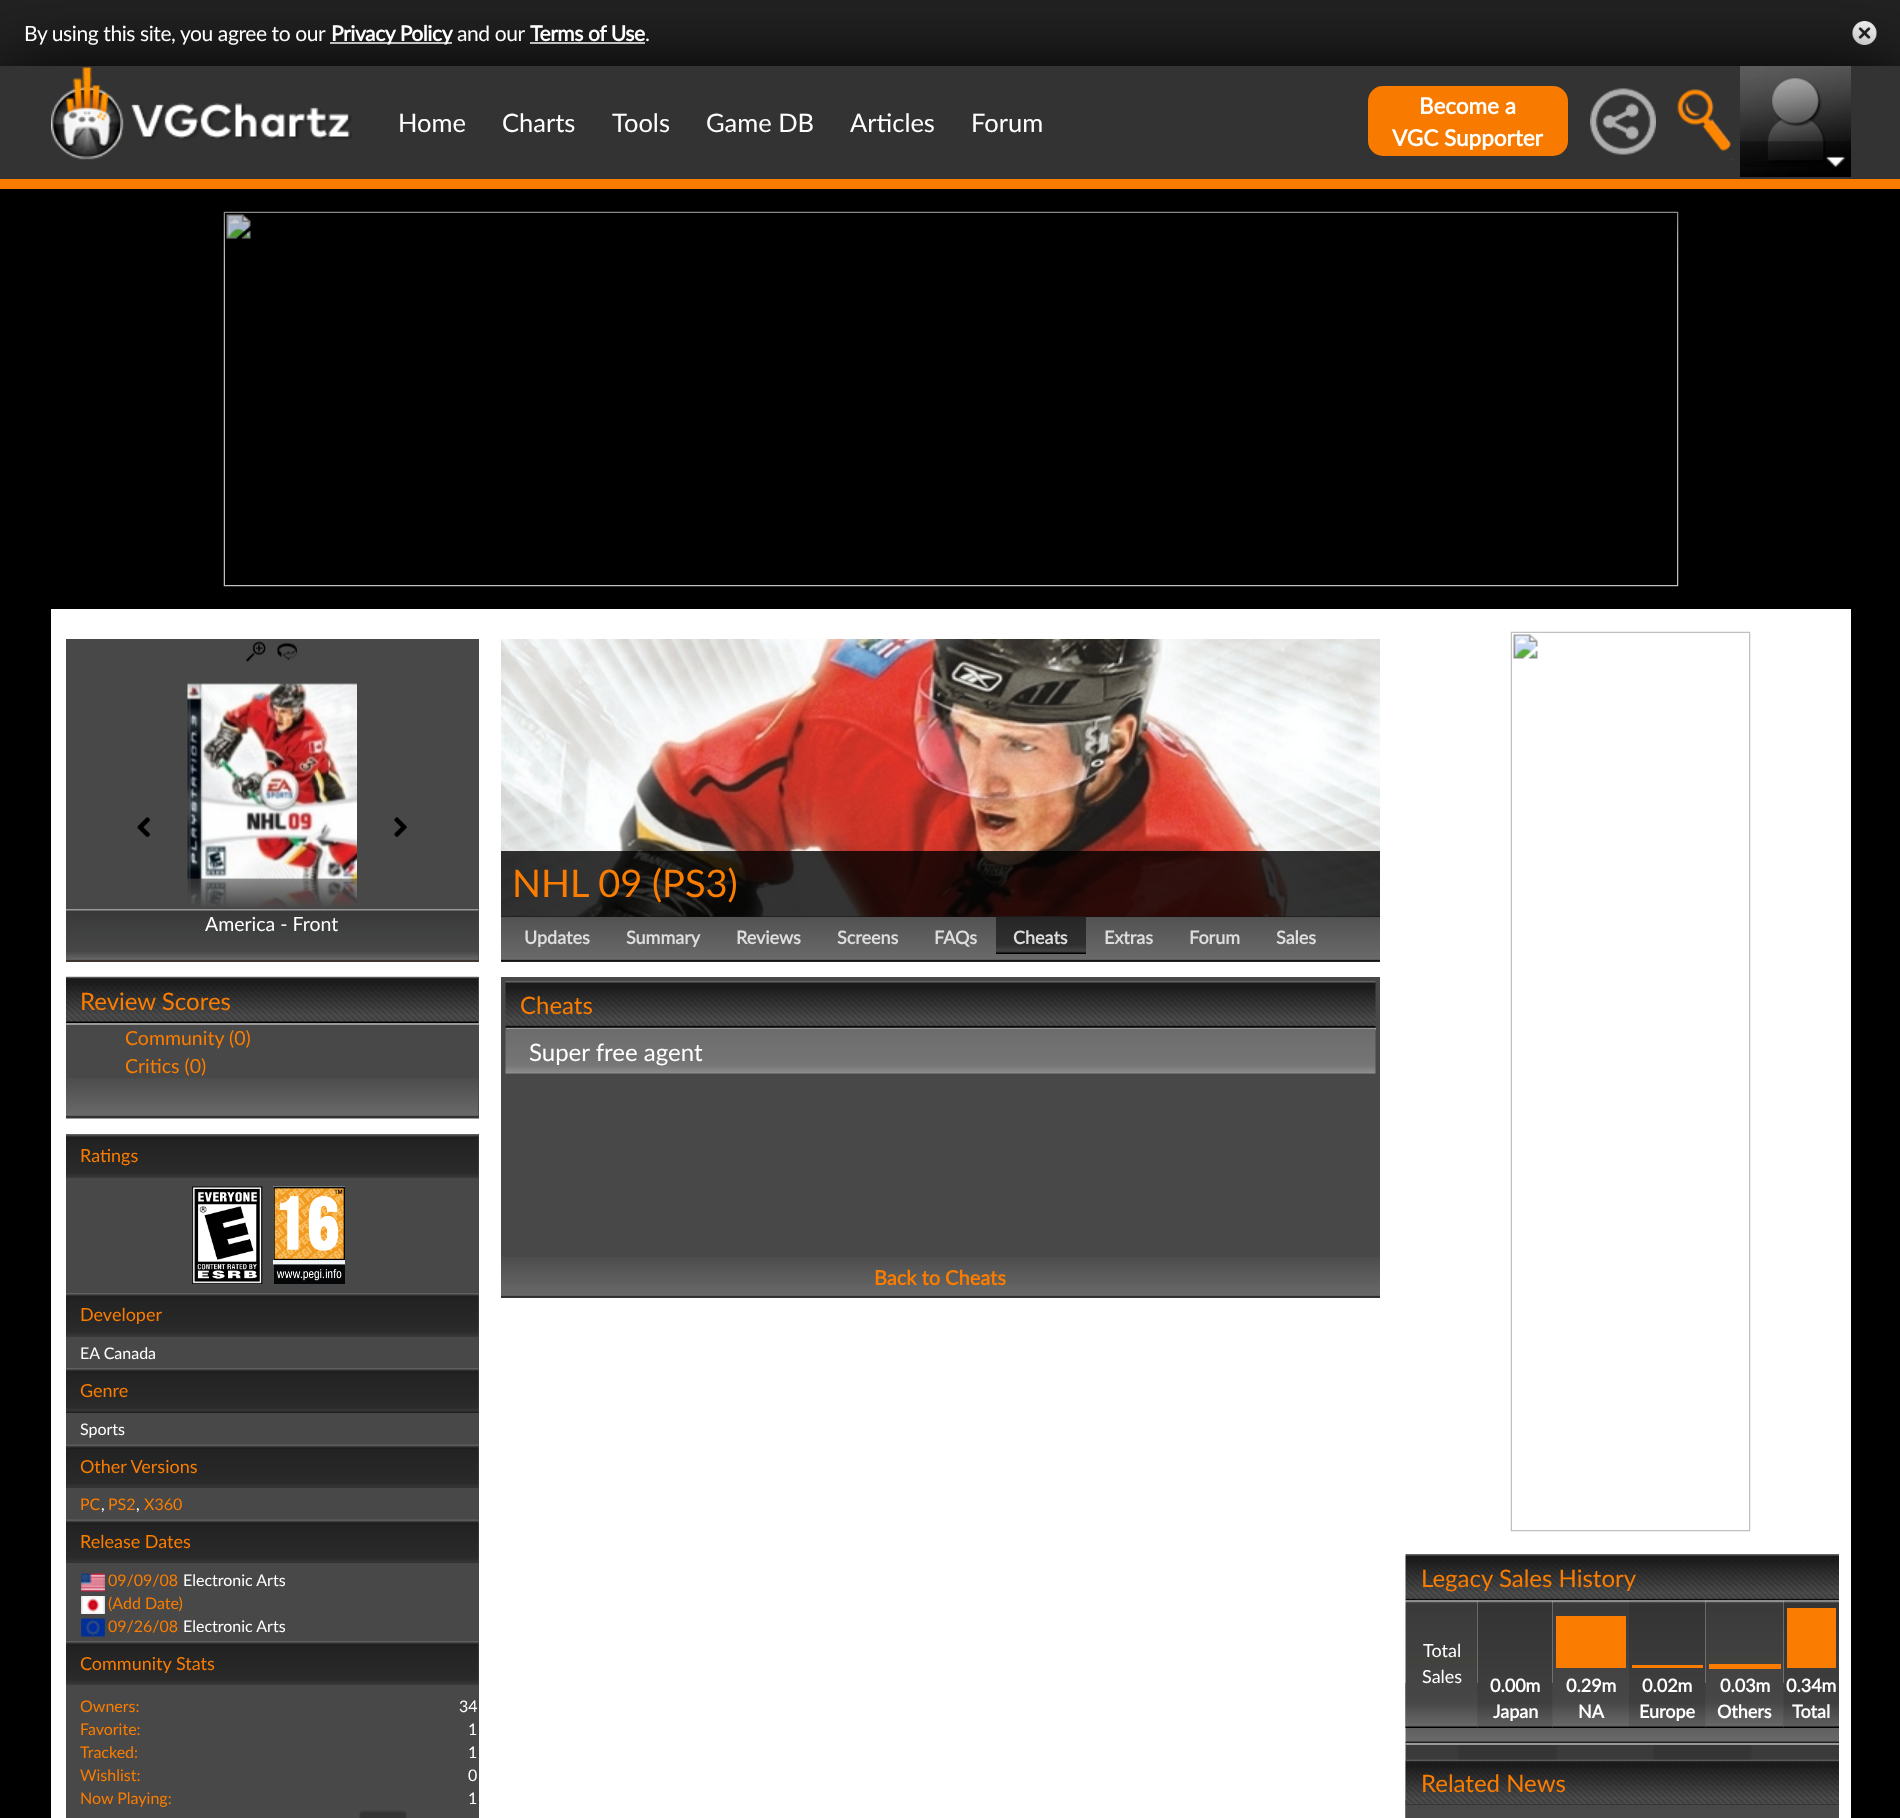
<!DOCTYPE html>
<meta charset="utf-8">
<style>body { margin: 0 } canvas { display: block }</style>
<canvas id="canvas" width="1900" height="1818"></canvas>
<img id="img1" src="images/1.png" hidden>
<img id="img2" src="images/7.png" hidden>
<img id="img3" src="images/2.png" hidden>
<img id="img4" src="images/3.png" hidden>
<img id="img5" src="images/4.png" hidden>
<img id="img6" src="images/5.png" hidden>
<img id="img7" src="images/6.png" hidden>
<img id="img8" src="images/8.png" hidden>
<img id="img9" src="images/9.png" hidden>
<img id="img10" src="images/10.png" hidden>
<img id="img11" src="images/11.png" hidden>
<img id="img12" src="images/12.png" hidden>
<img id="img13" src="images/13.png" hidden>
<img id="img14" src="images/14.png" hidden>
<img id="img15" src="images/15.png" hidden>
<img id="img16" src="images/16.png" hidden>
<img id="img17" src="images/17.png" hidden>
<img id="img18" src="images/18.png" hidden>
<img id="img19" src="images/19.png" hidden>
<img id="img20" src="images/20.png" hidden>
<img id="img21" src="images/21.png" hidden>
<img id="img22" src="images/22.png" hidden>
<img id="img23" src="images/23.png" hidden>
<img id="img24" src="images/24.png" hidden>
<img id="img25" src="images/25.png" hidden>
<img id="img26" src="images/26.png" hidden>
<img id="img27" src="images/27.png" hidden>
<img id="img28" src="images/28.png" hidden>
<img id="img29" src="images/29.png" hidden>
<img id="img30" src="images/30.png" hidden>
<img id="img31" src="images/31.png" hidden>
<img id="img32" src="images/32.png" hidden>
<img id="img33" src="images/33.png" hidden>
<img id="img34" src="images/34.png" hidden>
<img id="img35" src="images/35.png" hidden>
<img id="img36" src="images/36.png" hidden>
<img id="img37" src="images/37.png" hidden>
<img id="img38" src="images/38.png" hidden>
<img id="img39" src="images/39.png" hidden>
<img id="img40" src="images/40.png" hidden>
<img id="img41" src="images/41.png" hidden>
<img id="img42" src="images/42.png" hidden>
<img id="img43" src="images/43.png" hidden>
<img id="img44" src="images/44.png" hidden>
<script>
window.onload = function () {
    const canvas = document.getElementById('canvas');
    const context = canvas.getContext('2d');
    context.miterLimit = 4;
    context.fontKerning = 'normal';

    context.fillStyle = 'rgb(0, 0, 0)';
    context.fillRect(0, 0, 1900, 1818);
    context.fillStyle = 'rgb(34, 34, 34)';
    context.fillRect(0, 0, 1900, 66);
    context.fillStyle = 'rgb(255, 255, 255)';
    context.fillRect(330, 42, 122, 2);
    context.fillRect(530, 42, 115, 2);
    context.drawImage(document.getElementById('img1'), 1852, 21, 25, 24);
    context.drawImage(document.getElementById('img2'), 223, 211, 1456, 376);
    context.fillStyle = 'rgb(0, 0, 0)';
    context.filter = 'blur(37.5px)';
    context.beginPath();
    context.rect(0, 68, 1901, 123);
    context.fill();
    context.filter = 'none';
    context.fillStyle = 'rgb(51, 51, 51)';
    context.fillRect(0, 66, 1900, 113);
    context.drawImage(document.getElementById('img3'), 51, 67, 301, 93);
    context.fillStyle = 'rgb(248, 123, 0)';
    context.beginPath();
    context.roundRect(1369, 87, 198, 68, 14);
    context.fill();
    context.strokeStyle = 'rgb(248, 123, 0)';
    context.lineWidth = 2;
    context.stroke();
    context.drawImage(document.getElementById('img4'), 1590, 88, 66, 67);
    context.drawImage(document.getElementById('img5'), 1677, 80, 57, 80);
    context.drawImage(document.getElementById('img6'), 1740, 66, 111, 111);
    context.drawImage(document.getElementById('img7'), 1740, 141, 111, 26);
    context.fillStyle = 'rgb(249, 123, 0)';
    context.fillRect(0, 179, 1900, 10);
    context.fillStyle = 'rgb(255, 255, 255)';
    context.fillRect(51, 609, 1800, 1209);
    context.fillStyle = 'rgb(72, 72, 72)';
    context.fillRect(66, 639, 413, 323);
    context.drawImage(document.getElementById('img8'), 66, 909, 413, 53);
    context.drawImage(document.getElementById('img9'), 137, 817, 14, 20);
    context.drawImage(document.getElementById('img10'), 394, 817, 13, 20);
    context.drawImage(document.getElementById('img11'), 246, 641, 20, 21);
    context.drawImage(document.getElementById('img12'), 277, 643, 20, 18);
    context.drawImage(document.getElementById('img13'), 187, 683, 170, 196);
    context.drawImage(document.getElementById('img14'), 187, 879, 170, 28);
    context.fillRect(66, 977, 413, 141);
    context.drawImage(document.getElementById('img15'), 66, 1078, 413, 17);
    context.drawImage(document.getElementById('img16'), 66, 976, 413, 47);
    context.fillStyle = 'rgb(153, 153, 153)';
    context.fillRect(66, 1023, 413, 2);
    context.drawImage(document.getElementById('img17'), 66, 1095, 413, 23);
    context.fillRect(66, 1118, 413, 1);
    context.fillStyle = 'rgb(72, 72, 72)';
    context.fillRect(66, 1134, 413, 684);
    context.drawImage(document.getElementById('img18'), 66, 1134, 413, 44);
    context.drawImage(document.getElementById('img19'), 192, 1186, 71, 98);
    context.drawImage(document.getElementById('img20'), 273, 1186, 72, 98);
    context.drawImage(document.getElementById('img18'), 66, 1293, 413, 44);
    context.drawImage(document.getElementById('img21'), 66, 1368, 413, 45);
    context.drawImage(document.getElementById('img22'), 66, 1444, 413, 44);
    context.drawImage(document.getElementById('img22'), 66, 1519, 413, 44);
    context.drawImage(document.getElementById('img23'), 81, 1573, 24, 19);
    context.drawImage(document.getElementById('img24'), 81, 1596, 24, 18);
    context.drawImage(document.getElementById('img25'), 81, 1618, 24, 19);
    context.drawImage(document.getElementById('img18'), 66, 1641, 413, 44);
    context.drawImage(document.getElementById('img26'), 359, 1810, 48, 8);
    context.fillRect(501, 961, 879, 1);
    context.drawImage(document.getElementById('img27'), 501, 916, 879, 46);
    context.drawImage(document.getElementById('img28'), 501, 639, 879, 278);
    context.fillStyle = 'rgba(0, 0, 0, 0.8)';
    context.fillRect(501, 851, 879, 66);
    context.drawImage(document.getElementById('img29'), 996, 916, 90, 38);
    context.fillStyle = 'rgb(72, 72, 72)';
    context.fillRect(501, 977, 879, 321);
    context.drawImage(document.getElementById('img30'), 501, 1257, 879, 41);
    context.drawImage(document.getElementById('img31'), 505, 981, 871, 47);
    context.fillStyle = 'rgb(153, 153, 153)';
    context.fillRect(506, 1028, 870, 2);
    context.drawImage(document.getElementById('img32'), 505, 1029, 871, 45);
    context.drawImage(document.getElementById('img33'), 1510, 631, 241, 901);
    context.drawImage(document.getElementById('img34'), 1405, 1683, 434, 60);
    context.drawImage(document.getElementById('img35'), 1405, 1554, 434, 47);
    context.drawImage(document.getElementById('img36'), 1405, 1600, 73, 128);
    context.drawImage(document.getElementById('img37'), 1477, 1600, 76, 128);
    context.drawImage(document.getElementById('img38'), 1552, 1600, 77, 128);
    context.fillStyle = 'rgb(250, 125, 1)';
    context.fillRect(1556, 1616, 70, 52);
    context.drawImage(document.getElementById('img39'), 1629, 1600, 77, 128);
    context.fillRect(1632, 1665, 71, 3);
    context.drawImage(document.getElementById('img40'), 1705, 1600, 79, 128);
    context.fillRect(1709, 1664, 72, 5);
    context.drawImage(document.getElementById('img41'), 1783, 1600, 56, 128);
    context.fillRect(1787, 1608, 49, 60);
    context.drawImage(document.getElementById('img42'), 1405, 1743, 434, 75);
    context.fillStyle = 'rgb(153, 153, 153)';
    context.fillRect(1406, 1743, 433, 2);
    context.fillStyle = 'rgb(72, 72, 72)';
    context.fillRect(1406, 1804, 433, 14);
    context.drawImage(document.getElementById('img43'), 1405, 1800, 1, 18);
    context.drawImage(document.getElementById('img44'), 1405, 1759, 434, 46);
    context.letterSpacing = '-0.4px';
    context.font = '21px Lato';
    context.fillStyle = 'rgb(255, 255, 255)';
    context.fillText('By using this site, you agree to our', 24, 41);
    context.font = 'bold 21px Lato';
    context.fillText('Privacy Policy', 331, 41);
    context.font = '21px Lato';
    context.fillText('and our', 457, 41);
    context.font = 'bold 21px Lato';
    context.fillText('Terms of Use', 530, 41);
    context.font = '21px Lato';
    context.fillText('.', 645, 41);
    context.letterSpacing = '0px';
    context.font = '25.5px Lato';
    context.fillText('Home', 398, 132);
    context.fillText('Charts', 502, 132);
    context.fillText('Tools', 612, 132);
    context.fillText('Game DB', 706, 132);
    context.fillText('Articles', 850, 132);
    context.fillText('Forum', 971, 132);
    context.font = 'bold 22.5px Lato';
    context.fillText('Become a', 1419, 114);
    context.fillText('VGC Supporter', 1392, 146);
    context.font = '19.5px Lato';
    context.fillText('America - Front', 205, 931);
    context.font = '24px Lato';
    context.fillStyle = 'rgb(250, 125, 1)';
    context.fillText('Review Scores', 80, 1010);
    context.font = '19.5px Lato';
    context.fillText('Community (0)', 125, 1045);
    context.fillText('Critics (0)', 125, 1073);
    context.font = '18px Lato';
    context.fillText('Ratings', 80, 1162);
    context.fillText('Developer', 80, 1321);
    context.font = '16px Lato';
    context.fillStyle = 'rgb(255, 255, 255)';
    context.fillText('EA Canada', 80, 1359);
    context.font = '18px Lato';
    context.fillStyle = 'rgb(250, 125, 1)';
    context.fillText('Genre', 80, 1397);
    context.font = '16px Lato';
    context.fillStyle = 'rgb(255, 255, 255)';
    context.fillText('Sports', 80, 1435);
    context.font = '18px Lato';
    context.fillStyle = 'rgb(250, 125, 1)';
    context.fillText('Other Versions', 80, 1473);
    context.font = '16px Lato';
    context.fillText('PC', 80, 1510);
    context.fillStyle = 'rgb(255, 255, 255)';
    context.fillText(',', 101, 1510);
    context.fillStyle = 'rgb(250, 125, 1)';
    context.fillText('PS2', 108, 1510);
    context.fillStyle = 'rgb(255, 255, 255)';
    context.fillText(',', 136, 1510);
    context.fillStyle = 'rgb(250, 125, 1)';
    context.fillText('X360', 144, 1510);
    context.font = '18px Lato';
    context.fillText('Release Dates', 80, 1548);
    context.font = '16px Lato';
    context.fillText('09/09/08', 108, 1586);
    context.fillStyle = 'rgb(255, 255, 255)';
    context.fillText('Electronic Arts', 183, 1586);
    context.fillStyle = 'rgb(250, 125, 1)';
    context.fillText('(Add Date)', 108, 1609);
    context.fillText('09/26/08', 108, 1632);
    context.fillStyle = 'rgb(255, 255, 255)';
    context.fillText('Electronic Arts', 183, 1632);
    context.font = '18px Lato';
    context.fillStyle = 'rgb(250, 125, 1)';
    context.fillText('Community Stats', 80, 1670);
    context.font = '16px Lato';
    context.fillText('Owners:', 80, 1712);
    context.fillStyle = 'rgb(255, 255, 255)';
    context.fillText('34', 459, 1712);
    context.fillStyle = 'rgb(250, 125, 1)';
    context.fillText('Favorite:', 80, 1735);
    context.fillStyle = 'rgb(255, 255, 255)';
    context.fillText('1', 468, 1735);
    context.fillStyle = 'rgb(250, 125, 1)';
    context.fillText('Tracked:', 80, 1758);
    context.fillStyle = 'rgb(255, 255, 255)';
    context.fillText('1', 468, 1758);
    context.fillStyle = 'rgb(250, 125, 1)';
    context.fillText('Wishlist:', 80, 1781);
    context.fillStyle = 'rgb(255, 255, 255)';
    context.fillText('0', 468, 1781);
    context.fillStyle = 'rgb(250, 125, 1)';
    context.fillText('Now Playing:', 80, 1804);
    context.fillStyle = 'rgb(255, 255, 255)';
    context.fillText('1', 468, 1804);
    context.font = '38px Lato';
    context.fillStyle = 'rgb(250, 125, 1)';
    context.fillText('NHL 09 (PS3)', 512, 897);
    context.font = 'bold 18px Lato';
    context.fillStyle = 'rgb(221, 221, 221)';
    context.fillText('Updates', 524, 944);
    context.fillText('Summary', 626, 944);
    context.fillText('Reviews', 736, 944);
    context.fillText('Screens', 837, 944);
    context.fillText('FAQs', 934, 944);
    context.fillText('Cheats', 1013, 944);
    context.fillText('Extras', 1104, 944);
    context.fillText('Forum', 1189, 944);
    context.fillText('Sales', 1276, 944);
    context.font = '24px Lato';
    context.fillStyle = 'rgb(250, 125, 1)';
    context.fillText('Cheats', 520, 1014);
    context.fillStyle = 'rgb(255, 255, 255)';
    context.fillText('Super free agent', 529, 1061);
    context.font = 'bold 20px Lato';
    context.fillStyle = 'rgb(250, 125, 1)';
    context.fillText('Back to Cheats', 874, 1285);
    context.font = '24px Lato';
    context.fillText('Legacy Sales History', 1421, 1587);
    context.font = '18px Lato';
    context.fillStyle = 'rgb(255, 255, 255)';
    context.fillText('Total', 1423, 1657);
    context.fillText('Sales', 1422, 1683);
    context.font = 'bold 18px Lato';
    context.fillText('0.00m', 1490, 1692);
    context.fillText('Japan', 1493, 1718);
    context.fillText('0.29m', 1566, 1692);
    context.fillText('NA', 1578, 1718);
    context.fillText('0.02m', 1642, 1692);
    context.fillText('Europe', 1639, 1718);
    context.fillText('0.03m', 1720, 1692);
    context.fillText('Others', 1717, 1718);
    context.fillText('0.34m', 1786, 1692);
    context.fillText('Total', 1792, 1718);
    context.font = '24px Lato';
    context.fillStyle = 'rgb(250, 125, 1)';
    context.fillText('Related News', 1421, 1792);
};
</script>
